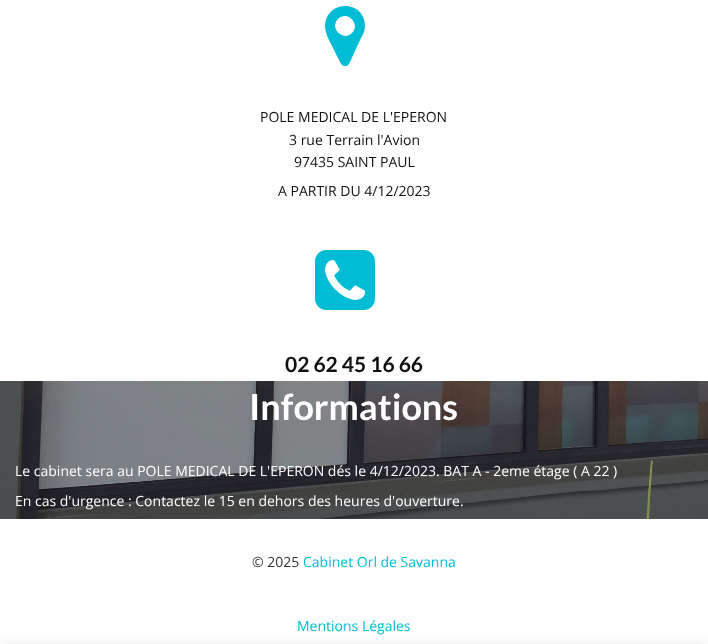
<!DOCTYPE html>
<meta charset="utf-8">
<style>body { margin: 0 } canvas { display: block }</style>
<canvas id="canvas" width="708" height="644"></canvas>
<img id="img1" src="images/1.png" hidden>
<img id="img2" src="images/2.png" hidden>
<script>
window.onload = function () {
    const canvas = document.getElementById('canvas');
    const context = canvas.getContext('2d');
    context.miterLimit = 4;
    context.fontKerning = 'normal';

    context.fillStyle = 'rgb(255, 255, 255)';
    context.fillRect(0, 0, 708, 644);
    context.fillStyle = 'rgb(0, 188, 212)';
    context.beginPath();
    context.moveTo(352, 33);
    context.bezierCurveTo(361, 24, 347, 10, 338, 19);
    context.bezierCurveTo(329, 28, 343, 42, 352, 33);
    context.closePath();
    context.moveTo(365, 26);
    context.bezierCurveTo(365, 31, 363, 34, 361, 38);
    context.lineTo(349, 64);
    context.bezierCurveTo(348, 65, 347, 66, 346, 66);
    context.bezierCurveTo(341, 67, 340, 61, 338, 58);
    context.lineTo(333, 48);
    context.bezierCurveTo(330, 42, 325, 33, 325, 26);
    context.bezierCurveTo(326, -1, 365, 0, 365, 26);
    context.closePath();
    context.fill();
    context.drawImage(document.getElementById('img1'), 315, 250, 60, 60);
    context.drawImage(document.getElementById('img2'), 0, 381, 708, 138);
    context.fillStyle = 'rgba(0, 0, 0, 0.15)';
    context.filter = 'blur(7.5px)';
    context.beginPath();
    context.rect(0, 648, 708, 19);
    context.fill();
    context.filter = 'none';
    context.font = '14px Open Sans';
    context.fillStyle = 'rgb(17, 17, 17)';
    context.fillText('POLE MEDICAL DE L\'EPERON', 260, 122);
    context.fillText('3 rue Terrain l\'Avion', 289, 145);
    context.fillText('97435 SAINT PAUL', 294, 167);
    context.fillText('A PARTIR DU 4/12/2023', 278, 196);
    context.font = 'bold 21px Lato';
    context.fillText('02 62 45 16 66', 285, 372);
    context.font = 'bold 36px Lato';
    context.fillStyle = 'rgb(255, 255, 255)';
    context.fillText('Informations', 249, 420);
    context.font = '14px Open Sans';
    context.fillText('Le cabinet sera au POLE MEDICAL DE L\'EPERON dés le 4/12/2023. BAT A - 2eme étage ( A 22 )', 15, 476);
    context.fillText('En cas d\'urgence : Contactez le 15 en dehors des heures d\'ouverture.', 15, 506);
    context.fillStyle = 'rgb(51, 51, 51)';
    context.fillText('© 2025', 252, 567);
    context.fillStyle = 'rgb(0, 188, 212)';
    context.fillText('Cabinet Orl de Savanna', 303, 567);
    context.fillText('Mentions Légales', 297, 631);
};
</script>
